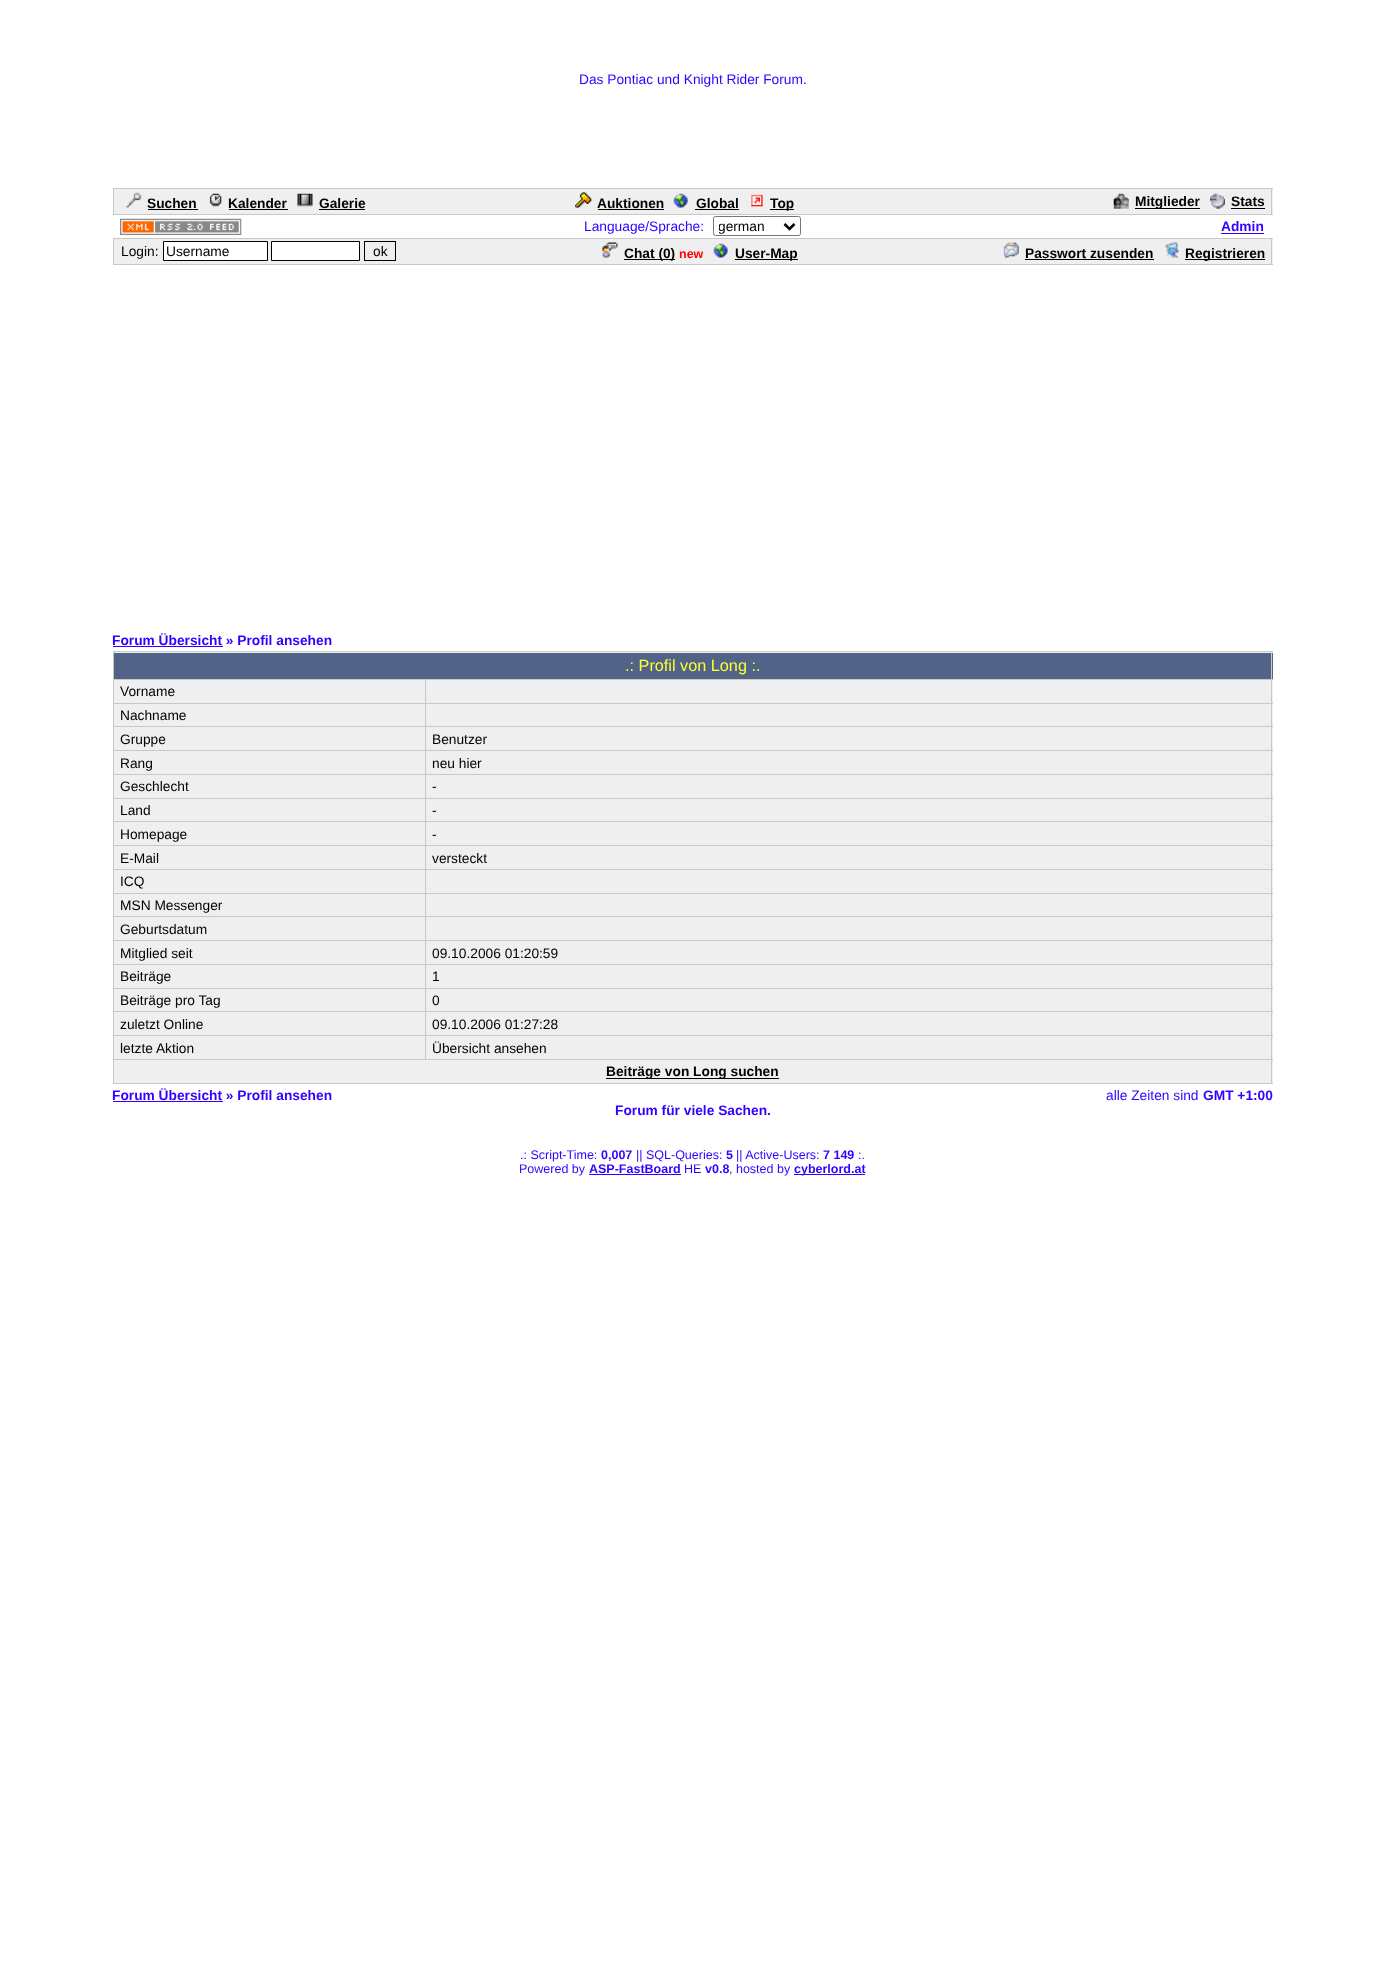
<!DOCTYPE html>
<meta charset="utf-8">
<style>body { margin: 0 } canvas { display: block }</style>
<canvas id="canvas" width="1385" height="1968"></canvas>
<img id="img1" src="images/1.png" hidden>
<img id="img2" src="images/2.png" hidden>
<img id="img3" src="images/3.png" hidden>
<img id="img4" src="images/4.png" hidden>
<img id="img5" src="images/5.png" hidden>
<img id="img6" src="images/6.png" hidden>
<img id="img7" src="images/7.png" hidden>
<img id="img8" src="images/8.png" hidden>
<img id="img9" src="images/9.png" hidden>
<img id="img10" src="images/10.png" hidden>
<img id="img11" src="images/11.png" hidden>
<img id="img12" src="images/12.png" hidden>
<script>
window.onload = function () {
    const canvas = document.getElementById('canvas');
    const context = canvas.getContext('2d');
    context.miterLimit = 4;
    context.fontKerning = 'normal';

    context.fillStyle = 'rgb(255, 255, 255)';
    context.fillRect(0, 0, 1385, 1968);
    context.fillStyle = 'rgb(239, 239, 239)';
    context.fillRect(114, 189, 1159, 25);
    context.fillStyle = 'rgb(200, 200, 200)';
    context.fillRect(113, 188, 1160, 1);
    context.fillRect(1271, 188, 1, 27);
    context.fillRect(113, 214, 1160, 1);
    context.fillRect(113, 188, 1, 27);
    context.drawImage(document.getElementById('img1'), 126, 192, 16, 16);
    context.fillStyle = 'rgb(0, 0, 0)';
    context.fillRect(148, 209, 50, 1);
    context.drawImage(document.getElementById('img2'), 209, 193, 13, 14);
    context.fillRect(229, 209, 59, 1);
    context.drawImage(document.getElementById('img3'), 297, 193, 16, 14);
    context.fillRect(319, 209, 46, 1);
    context.drawImage(document.getElementById('img4'), 575, 192, 17, 16);
    context.fillRect(598, 209, 66, 1);
    context.drawImage(document.getElementById('img5'), 673, 193, 15, 15);
    context.fillRect(695, 209, 44, 1);
    context.drawImage(document.getElementById('img6'), 751, 194, 12, 13);
    context.fillRect(770, 209, 24, 1);
    context.drawImage(document.getElementById('img7'), 1113, 193, 16, 16);
    context.fillRect(1135, 208, 65, 1);
    context.drawImage(document.getElementById('img8'), 1210, 193, 15, 16);
    context.fillRect(1231, 208, 34, 1);
    context.drawImage(document.getElementById('img9'), 120, 218, 122, 17);
    context.beginPath();
    context.roundRect(713.5, 216.5, 87, 19, 2);
    context.strokeStyle = 'rgb(118, 118, 118)';
    context.stroke();
    context.beginPath();
    context.moveTo(784.5, 224);
    context.lineTo(789.5, 229);
    context.lineTo(794.5, 224);
    context.strokeStyle = 'rgb(0, 0, 0)';
    context.lineWidth = 2.5;
    context.stroke();
    context.fillStyle = 'rgb(51, 0, 255)';
    context.fillRect(1221, 233, 43, 1);
    context.fillStyle = 'rgb(239, 239, 239)';
    context.fillRect(114, 239, 1159, 25);
    context.fillStyle = 'rgb(200, 200, 200)';
    context.fillRect(113, 238, 1160, 1);
    context.fillRect(1271, 238, 1, 27);
    context.fillRect(113, 264, 1160, 1);
    context.fillRect(113, 238, 1, 27);
    context.fillStyle = 'rgb(255, 255, 255)';
    context.beginPath();
    context.rect(163.5, 241.5, 104, 19);
    context.fill();
    context.lineWidth = 1;
    context.stroke();
    context.beginPath();
    context.rect(271.5, 241.5, 88, 19);
    context.fill();
    context.stroke();
    context.strokeRect(364.5, 241.5, 31, 19);
    context.drawImage(document.getElementById('img10'), 602, 242, 16, 16);
    context.fillStyle = 'rgb(0, 0, 0)';
    context.fillRect(624, 259, 51, 1);
    context.drawImage(document.getElementById('img5'), 713, 243, 15, 15);
    context.fillRect(735, 259, 63, 1);
    context.drawImage(document.getElementById('img11'), 1003, 242, 16, 16);
    context.fillRect(1025, 259, 129, 1);
    context.drawImage(document.getElementById('img12'), 1165, 242, 14, 16);
    context.fillRect(1185, 259, 80, 1);
    context.fillStyle = 'rgb(51, 0, 255)';
    context.fillRect(113, 646, 110, 1);
    context.fillStyle = 'rgb(239, 239, 239)';
    context.fillRect(114, 652, 1159, 431);
    context.fillStyle = 'rgb(82, 99, 136)';
    context.fillRect(114, 653, 1159, 26);
    context.fillStyle = 'rgb(200, 200, 200)';
    context.fillRect(113, 651, 1160, 1);
    context.fillRect(425, 679, 848, 1);
    context.fillRect(425, 703, 848, 1);
    context.fillRect(425, 726, 848, 1);
    context.fillRect(425, 750, 848, 1);
    context.fillRect(425, 774, 848, 1);
    context.fillRect(425, 798, 848, 1);
    context.fillRect(425, 821, 848, 1);
    context.fillRect(425, 845, 848, 1);
    context.fillRect(425, 869, 848, 1);
    context.fillRect(425, 893, 848, 1);
    context.fillRect(425, 916, 848, 1);
    context.fillRect(425, 940, 848, 1);
    context.fillRect(425, 964, 848, 1);
    context.fillRect(425, 988, 848, 1);
    context.fillRect(425, 1011, 848, 1);
    context.fillRect(425, 1035, 848, 1);
    context.fillRect(113, 1059, 1160, 1);
    context.fillRect(1271, 1059, 1, 25);
    context.fillRect(1271, 1035, 1, 25);
    context.fillRect(1271, 1011, 1, 25);
    context.fillRect(1271, 988, 1, 25);
    context.fillRect(1271, 964, 1, 25);
    context.fillRect(1271, 940, 1, 25);
    context.fillRect(1271, 916, 1, 25);
    context.fillRect(1271, 893, 1, 25);
    context.fillRect(1271, 869, 1, 25);
    context.fillRect(1271, 845, 1, 25);
    context.fillRect(1271, 821, 1, 25);
    context.fillRect(1271, 798, 1, 25);
    context.fillRect(1271, 774, 1, 25);
    context.fillRect(1271, 750, 1, 25);
    context.fillRect(1271, 726, 1, 25);
    context.fillRect(1271, 703, 1, 25);
    context.fillRect(1271, 679, 1, 25);
    context.fillRect(1271, 651, 1, 29);
    context.fillRect(425, 1035, 1, 25);
    context.fillRect(113, 1035, 313, 1);
    context.fillRect(425, 1011, 1, 25);
    context.fillRect(113, 1011, 313, 1);
    context.fillRect(425, 988, 1, 25);
    context.fillRect(113, 988, 313, 1);
    context.fillRect(425, 964, 1, 25);
    context.fillRect(113, 964, 313, 1);
    context.fillRect(425, 940, 1, 25);
    context.fillRect(113, 940, 313, 1);
    context.fillRect(425, 916, 1, 25);
    context.fillRect(113, 916, 313, 1);
    context.fillRect(425, 893, 1, 25);
    context.fillRect(113, 893, 313, 1);
    context.fillRect(425, 869, 1, 25);
    context.fillRect(113, 869, 313, 1);
    context.fillRect(425, 845, 1, 25);
    context.fillRect(113, 845, 313, 1);
    context.fillRect(425, 821, 1, 25);
    context.fillRect(113, 821, 313, 1);
    context.fillRect(425, 798, 1, 25);
    context.fillRect(113, 798, 313, 1);
    context.fillRect(425, 774, 1, 25);
    context.fillRect(113, 774, 313, 1);
    context.fillRect(425, 750, 1, 25);
    context.fillRect(113, 750, 313, 1);
    context.fillRect(425, 726, 1, 25);
    context.fillRect(113, 726, 313, 1);
    context.fillRect(425, 703, 1, 25);
    context.fillRect(113, 703, 313, 1);
    context.fillRect(425, 679, 1, 25);
    context.fillRect(113, 679, 313, 1);
    context.fillRect(113, 1083, 1160, 1);
    context.fillRect(113, 1059, 1, 25);
    context.fillRect(113, 1035, 1, 25);
    context.fillRect(113, 1011, 1, 25);
    context.fillRect(113, 988, 1, 25);
    context.fillRect(113, 964, 1, 25);
    context.fillRect(113, 940, 1, 25);
    context.fillRect(113, 916, 1, 25);
    context.fillRect(113, 893, 1, 25);
    context.fillRect(113, 869, 1, 25);
    context.fillRect(113, 845, 1, 25);
    context.fillRect(113, 821, 1, 25);
    context.fillRect(113, 798, 1, 25);
    context.fillRect(113, 774, 1, 25);
    context.fillRect(113, 750, 1, 25);
    context.fillRect(113, 726, 1, 25);
    context.fillRect(113, 703, 1, 25);
    context.fillRect(113, 679, 1, 25);
    context.fillRect(113, 651, 1, 29);
    context.fillStyle = 'rgb(0, 0, 0)';
    context.fillRect(606, 1078, 173, 1);
    context.fillStyle = 'rgb(51, 0, 255)';
    context.fillRect(113, 1101, 110, 1);
    context.fillRect(589, 1174, 92, 1);
    context.fillRect(794, 1174, 71, 1);
    context.font = '13.75px Liberation Sans';
    context.fillText('Das Pontiac und Knight Rider Forum.', 579, 84);
    context.font = 'bold 13.75px Liberation Sans';
    context.fillStyle = 'rgb(0, 0, 0)';
    context.fillText('Suchen', 147, 208);
    context.fillText('Kalender', 228, 208);
    context.fillText('Galerie', 319, 208);
    context.fillText('Auktionen', 597, 208);
    context.fillText('Global', 696, 208);
    context.fillText('Top', 770, 208);
    context.fillText('Mitglieder', 1135, 206);
    context.fillText('Stats', 1231, 206);
    context.font = '13.75px Liberation Sans';
    context.fillStyle = 'rgb(51, 0, 255)';
    context.fillText('Language/Sprache:', 584, 231);
    context.save();
    context.beginPath();
    context.rect(719, 218, 61, 17);
    context.clip();
    context.fillStyle = 'rgb(0, 0, 0)';
    context.fillText('german', 718, 231);
    context.restore();
    context.font = 'bold 13.75px Liberation Sans';
    context.fillText('Admin', 1221, 231);
    context.font = '13.75px Liberation Sans';
    context.fillStyle = 'rgb(0, 0, 0)';
    context.fillText('Login:', 121, 256);
    context.fillText('Username', 166, 256);
    context.fillText('ok', 373, 256);
    context.font = 'bold 13.75px Liberation Sans';
    context.fillText('Chat (0)', 624, 258);
    context.font = 'bold 12.5px Liberation Sans';
    context.fillStyle = 'rgb(255, 0, 0)';
    context.fillText('new', 679, 258);
    context.font = 'bold 13.75px Liberation Sans';
    context.fillStyle = 'rgb(0, 0, 0)';
    context.fillText('User-Map', 735, 258);
    context.fillText('Passwort zusenden', 1025, 258);
    context.fillText('Registrieren', 1185, 258);
    context.fillStyle = 'rgb(51, 0, 255)';
    context.fillText('Forum Übersicht » Profil ansehen', 112, 645);
    context.font = '16.25px Liberation Sans';
    context.fillStyle = 'rgb(255, 255, 51)';
    context.fillText('.: Profil von Long :.', 625, 671);
    context.font = '13.75px Liberation Sans';
    context.fillStyle = 'rgb(0, 0, 0)';
    context.fillText('Vorname', 120, 696);
    context.fillText('Nachname', 120, 720);
    context.fillText('Gruppe', 120, 744);
    context.fillText('Benutzer', 432, 744);
    context.fillText('Rang', 120, 768);
    context.fillText('neu hier', 432, 768);
    context.fillText('Geschlecht', 120, 791);
    context.fillText('-', 432, 791);
    context.fillText('Land', 120, 815);
    context.fillText('-', 432, 815);
    context.fillText('Homepage', 120, 839);
    context.fillText('-', 432, 839);
    context.fillText('E-Mail', 120, 863);
    context.fillText('versteckt', 432, 863);
    context.fillText('ICQ', 120, 886);
    context.fillText('MSN Messenger', 120, 910);
    context.fillText('Geburtsdatum', 120, 934);
    context.fillText('Mitglied seit', 120, 958);
    context.fillText('09.10.2006 01:20:59', 432, 958);
    context.fillText('Beiträge', 120, 981);
    context.fillText('1', 432, 981);
    context.fillText('Beiträge pro Tag', 120, 1005);
    context.fillText('0', 432, 1005);
    context.fillText('zuletzt Online', 120, 1029);
    context.fillText('09.10.2006 01:27:28', 432, 1029);
    context.fillText('letzte Aktion', 120, 1053);
    context.fillText('Übersicht ansehen', 432, 1053);
    context.font = 'bold 13.75px Liberation Sans';
    context.fillText('Beiträge von Long suchen', 606, 1076);
    context.fillStyle = 'rgb(51, 0, 255)';
    context.fillText('Forum Übersicht » Profil ansehen', 112, 1100);
    context.font = '13.75px Liberation Sans';
    context.fillText('alle Zeiten sind', 1106, 1100);
    context.font = 'bold 13.75px Liberation Sans';
    context.fillText('GMT +1:00', 1203, 1100);
    context.fillText('Forum für viele Sachen.', 615, 1115);
    context.font = '12.5px Liberation Sans';
    context.fillText('.: Script-Time:', 520, 1159);
    context.font = 'bold 12.5px Liberation Sans';
    context.fillText('0,007', 601, 1159);
    context.font = '12.5px Liberation Sans';
    context.fillText('|| SQL-Queries:', 636, 1159);
    context.font = 'bold 12.5px Liberation Sans';
    context.fillText('5', 726, 1159);
    context.font = '12.5px Liberation Sans';
    context.fillText('|| Active-Users:', 736, 1159);
    context.font = 'bold 12.5px Liberation Sans';
    context.fillText('7 149', 823, 1159);
    context.font = '12.5px Liberation Sans';
    context.fillText(':.', 858, 1159);
    context.fillText('Powered by', 519, 1173);
    context.font = 'bold 12.5px Liberation Sans';
    context.fillText('ASP-FastBoard', 589, 1173);
    context.font = '12.5px Liberation Sans';
    context.fillText('HE', 684, 1173);
    context.font = 'bold 12.5px Liberation Sans';
    context.fillText('v0.8', 705, 1173);
    context.font = '12.5px Liberation Sans';
    context.fillText(', hosted by', 729, 1173);
    context.font = 'bold 12.5px Liberation Sans';
    context.fillText('cyberlord.at', 794, 1173);
};
</script>
